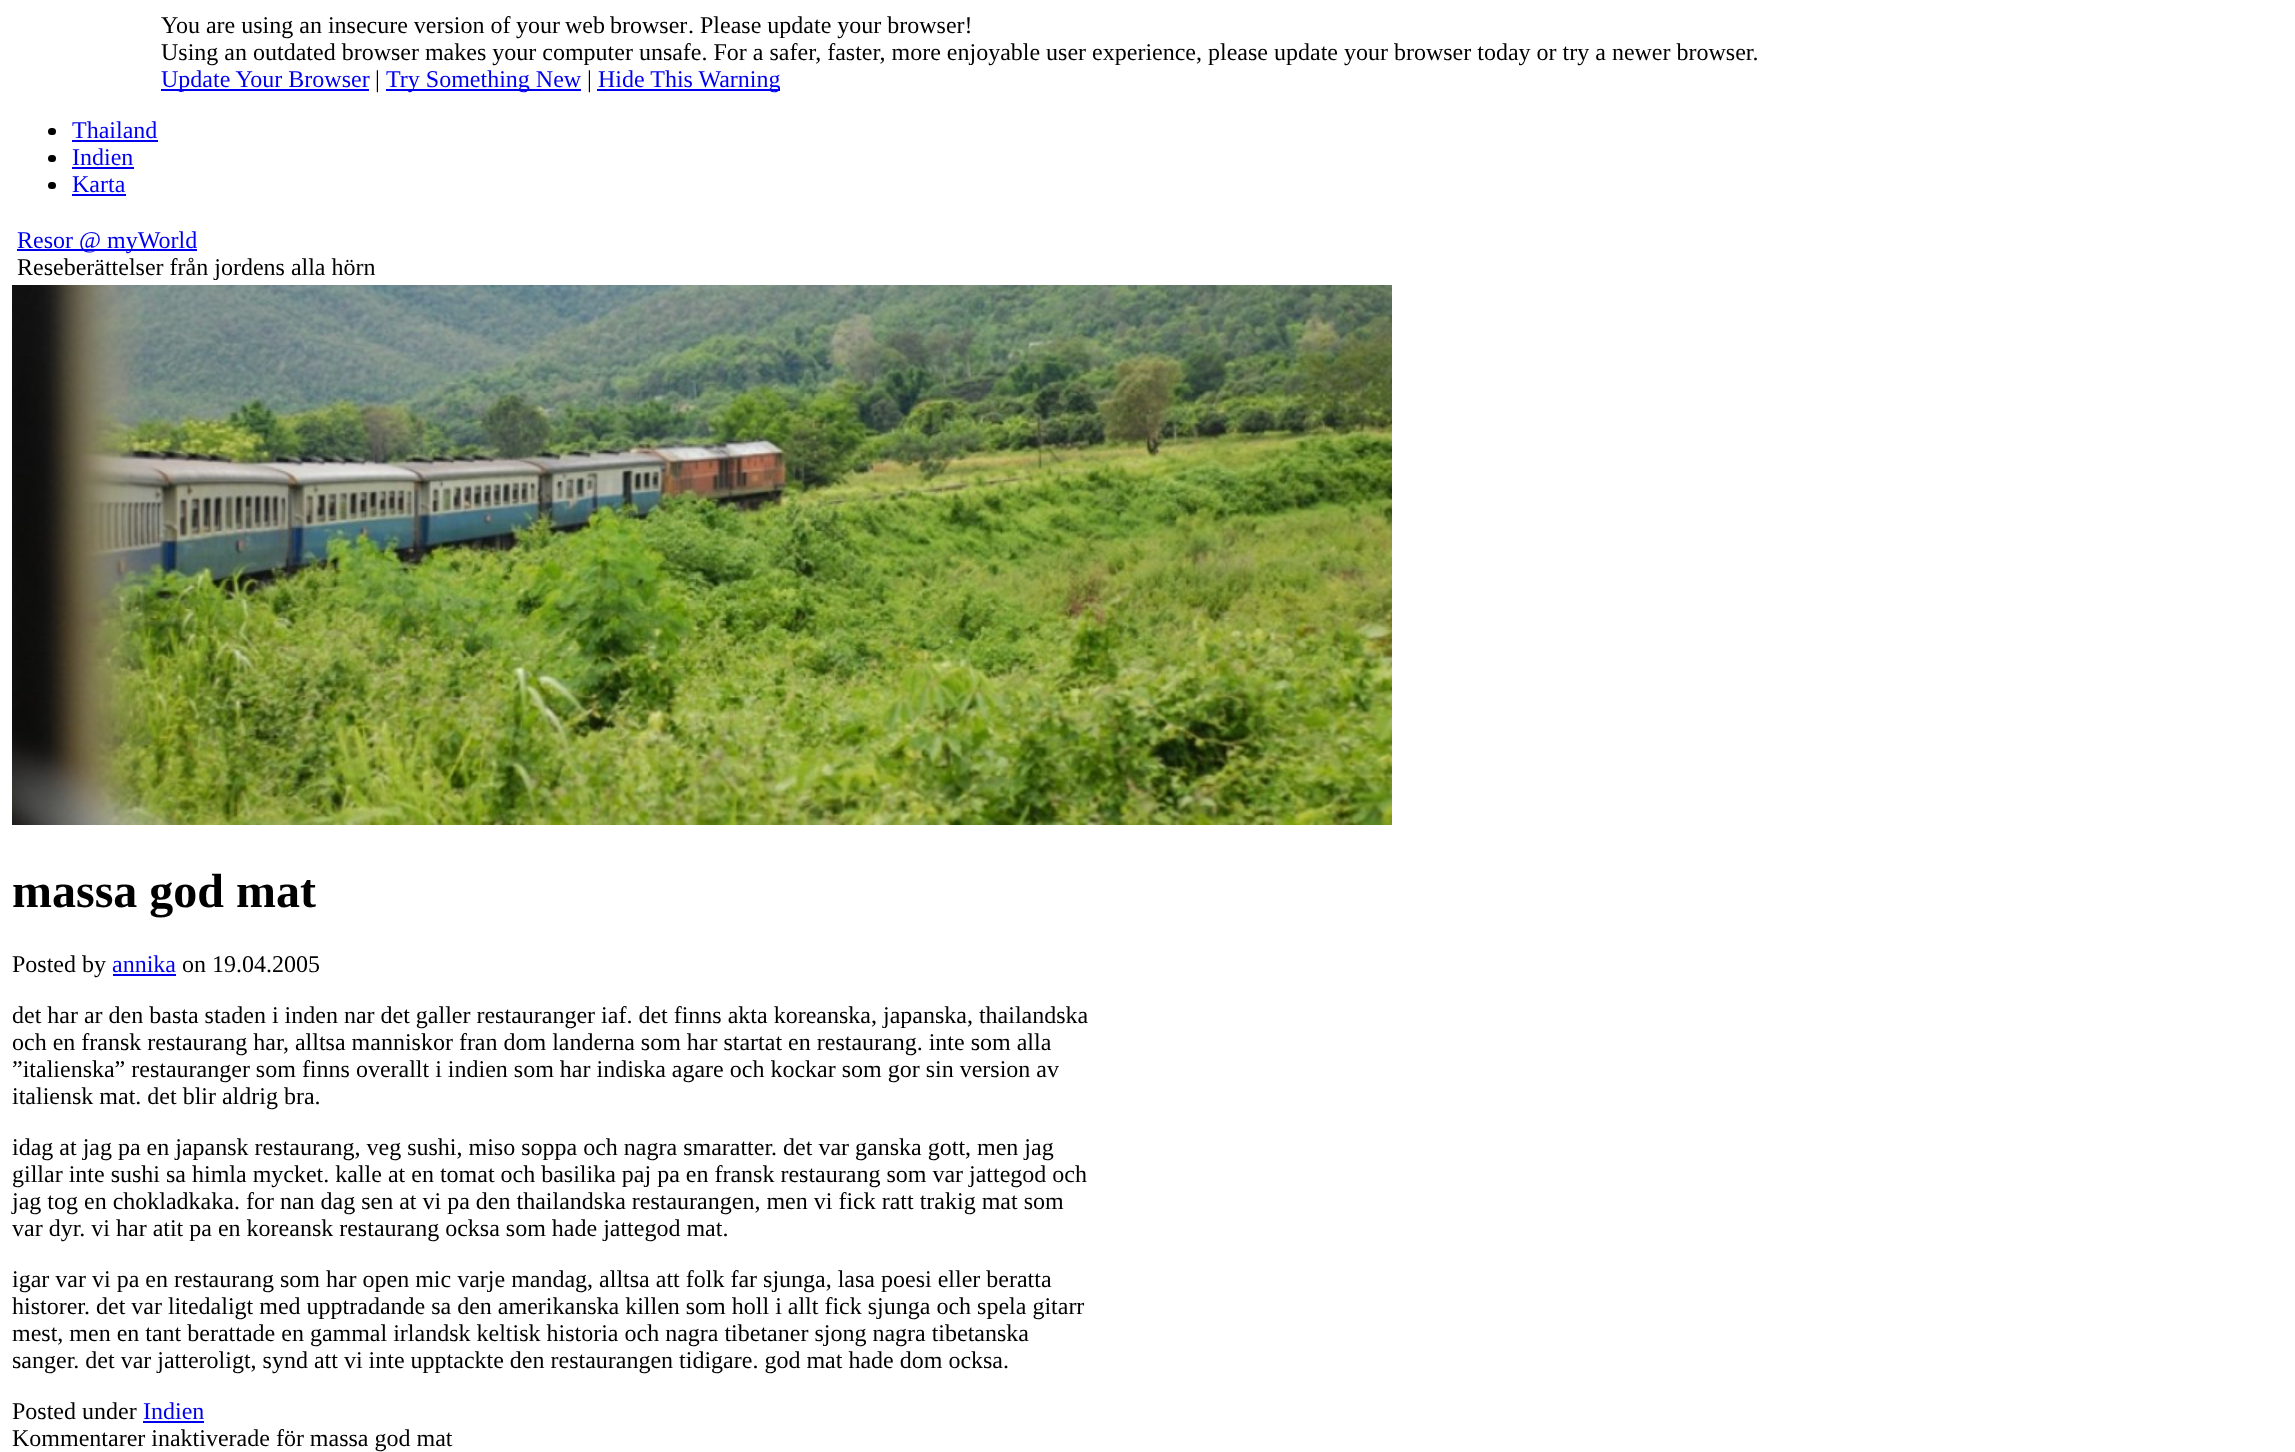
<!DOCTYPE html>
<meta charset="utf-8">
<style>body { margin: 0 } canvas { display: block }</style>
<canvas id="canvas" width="2295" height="1452"></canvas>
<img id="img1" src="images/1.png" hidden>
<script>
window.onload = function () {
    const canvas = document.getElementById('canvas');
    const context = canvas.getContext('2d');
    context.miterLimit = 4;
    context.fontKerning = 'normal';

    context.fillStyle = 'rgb(255, 255, 255)';
    context.fillRect(0, 0, 2295, 1452);
    context.fillStyle = 'rgb(0, 0, 238)';
    context.fillRect(161, 89, 208, 2);
    context.fillRect(386, 89, 195, 2);
    context.fillRect(597, 89, 183, 2);
    context.fillStyle = 'rgb(0, 0, 0)';
    context.beginPath();
    context.roundRect(48, 128, 8, 7, 3.5);
    context.fill();
    context.fillStyle = 'rgb(0, 0, 238)';
    context.fillRect(72, 140, 86, 2);
    context.fillStyle = 'rgb(0, 0, 0)';
    context.beginPath();
    context.roundRect(48, 155, 8, 7, 3.5);
    context.fill();
    context.fillStyle = 'rgb(0, 0, 238)';
    context.fillRect(72, 167, 62, 2);
    context.fillStyle = 'rgb(0, 0, 0)';
    context.beginPath();
    context.roundRect(48, 182, 8, 7, 3.5);
    context.fill();
    context.fillStyle = 'rgb(0, 0, 238)';
    context.fillRect(72, 194, 54, 2);
    context.fillRect(17, 249, 180, 2);
    context.drawImage(document.getElementById('img1'), 12, 285, 1380, 540);
    context.fillRect(113, 974, 63, 2);
    context.fillRect(143, 1421, 61, 2);
    context.font = '24px Liberation Serif';
    context.fillStyle = 'rgb(0, 0, 0)';
    context.fillText('You are using an insecure version of', 161, 33);
    context.wordSpacing = '-1px';
    context.fillText('your web browser', 516, 33);
    context.wordSpacing = '0px';
    context.fillText('. Please update your browser!', 688, 33);
    context.fillText('Using an outdated browser makes your computer unsafe. For a safer, faster, more enjoyable user experience, please update your browser today or try a newer browser.', 161, 60);
    context.fillStyle = 'rgb(0, 0, 238)';
    context.fillText('Update Your Browser', 161, 87);
    context.fillStyle = 'rgb(0, 0, 0)';
    context.fillText('|', 375, 87);
    context.fillStyle = 'rgb(0, 0, 238)';
    context.fillText('Try Something New', 386, 87);
    context.fillStyle = 'rgb(0, 0, 0)';
    context.fillText('|', 587, 87);
    context.fillStyle = 'rgb(0, 0, 238)';
    context.fillText('Hide This Warning', 598, 87);
    context.fillText('Thailand', 72, 138);
    context.fillText('Indien', 72, 165);
    context.fillText('Karta', 72, 192);
    context.fillText('Resor @ myWorld', 17, 248);
    context.fillStyle = 'rgb(0, 0, 0)';
    context.fillText('Reseberättelser från jordens alla hörn', 17, 275);
    context.font = 'bold 48px Liberation Serif';
    context.fillText('massa god mat', 12, 907);
    context.font = '24px Liberation Serif';
    context.fillText('Posted by', 12, 972);
    context.fillStyle = 'rgb(0, 0, 238)';
    context.fillText('annika', 112, 972);
    context.fillStyle = 'rgb(0, 0, 0)';
    context.fillText('on 19.04.2005', 182, 972);
    context.fillText('det har ar den basta staden i inden nar det galler restauranger iaf. det finns akta koreanska, japanska, thailandska', 12, 1023);
    context.fillText('och en fransk restaurang har, alltsa manniskor fran dom landerna som har startat en restaurang. inte som alla', 12, 1050);
    context.fillText('”italienska” restauranger som finns overallt i indien som har indiska agare och kockar som gor sin version av', 12, 1077);
    context.fillText('italiensk mat. det blir aldrig bra.', 12, 1104);
    context.fillText('idag at jag pa en japansk restaurang, veg sushi, miso soppa och nagra smaratter. det var ganska gott, men jag', 12, 1155);
    context.fillText('gillar inte sushi sa himla mycket. kalle at en tomat och basilika paj pa en fransk restaurang som var jattegod och', 12, 1182);
    context.fillText('jag tog en chokladkaka. for nan dag sen at vi pa den thailandska restaurangen, men vi fick ratt trakig mat som', 12, 1209);
    context.fillText('var dyr. vi har atit pa en koreansk restaurang ocksa som hade jattegod mat.', 12, 1236);
    context.fillText('igar var vi pa en restaurang som har open mic varje mandag, alltsa att folk far sjunga, lasa poesi eller beratta', 12, 1287);
    context.fillText('historer. det var litedaligt med upptradande sa den amerikanska killen som holl i allt fick sjunga och spela gitarr', 12, 1314);
    context.fillText('mest, men en tant berattade en gammal irlandsk keltisk historia och nagra tibetaner sjong nagra tibetanska', 12, 1341);
    context.fillText('sanger. det var jatteroligt, synd att vi inte upptackte den restaurangen tidigare. god mat hade dom ocksa.', 12, 1368);
    context.fillText('Posted under', 12, 1419);
    context.fillStyle = 'rgb(0, 0, 238)';
    context.fillText('Indien', 143, 1419);
    context.fillStyle = 'rgb(0, 0, 0)';
    context.fillText('Kommentarer inaktiverade för massa god mat', 12, 1446);
};
</script>
